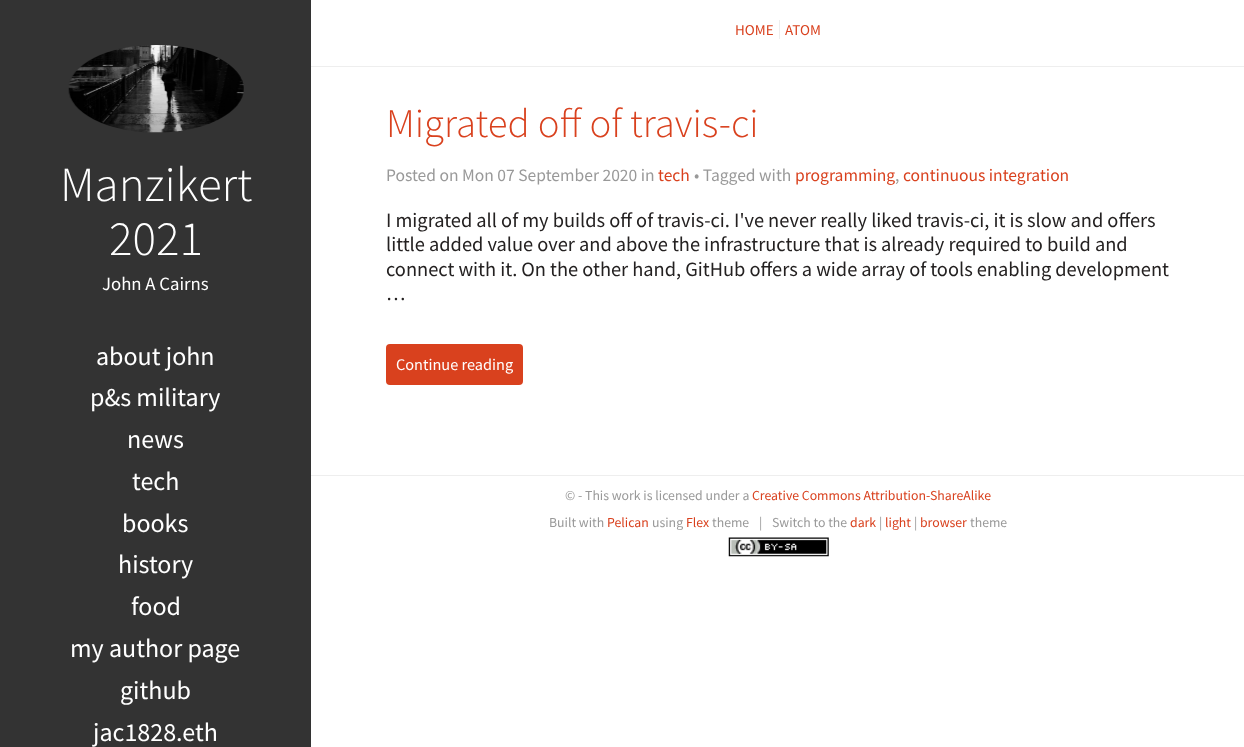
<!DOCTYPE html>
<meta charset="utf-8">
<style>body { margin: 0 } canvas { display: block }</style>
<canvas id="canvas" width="1244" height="747"></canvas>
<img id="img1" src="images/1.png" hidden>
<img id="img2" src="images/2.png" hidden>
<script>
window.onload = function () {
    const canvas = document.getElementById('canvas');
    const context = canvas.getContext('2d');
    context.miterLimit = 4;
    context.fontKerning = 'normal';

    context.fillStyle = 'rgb(255, 255, 255)';
    context.fillRect(0, 0, 1244, 747);
    context.fillStyle = 'rgb(51, 51, 51)';
    context.fillRect(0, 0, 311, 747);
    context.drawImage(document.getElementById('img1'), 68, 45, 176, 88);
    context.fillStyle = 'rgb(238, 238, 238)';
    context.fillRect(311, 66, 933, 1);
    context.fillRect(779, 20, 1, 19);
    context.fillStyle = 'rgb(217, 65, 30)';
    context.beginPath();
    context.roundRect(386, 344, 137, 41, 4);
    context.fill();
    context.fillStyle = 'rgb(238, 238, 238)';
    context.fillRect(311, 475, 933, 1);
    context.drawImage(document.getElementById('img2'), 728, 537, 101, 20);
    context.font = '300 49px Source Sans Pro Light';
    context.fillStyle = 'rgb(255, 255, 255)';
    context.fillText('Manzikert', 60, 201);
    context.fillText('2021', 109, 255);
    context.font = '18.75px Source Sans Pro';
    context.fillText('John A Cairns', 102, 290);
    context.font = '26px Source Sans Pro';
    context.fillText('about john', 96, 365);
    context.fillText('p&s military', 90, 406);
    context.fillText('news', 127, 448);
    context.fillText('tech', 132, 490);
    context.fillText('books', 122, 532);
    context.fillText('history', 118, 573);
    context.fillText('food', 131, 615);
    context.fillText('my author page', 70, 657);
    context.fillText('github', 120, 699);
    context.fillText('jac1828.eth', 93, 741);
    context.font = '15px Source Sans Pro';
    context.fillStyle = 'rgb(217, 65, 30)';
    context.fillText('HOME', 735, 35);
    context.fillText('ATOM', 785, 35);
    context.font = '300 40.75px Source Sans Pro Light';
    context.fillText('Migrated off of travis-ci', 386, 137);
    context.font = '17.5px Source Sans Pro';
    context.fillStyle = 'rgb(153, 153, 153)';
    context.fillText('Posted on Mon 07 September 2020 in', 386, 181);
    context.fillStyle = 'rgb(217, 65, 30)';
    context.fillText('tech', 658, 181);
    context.fillStyle = 'rgb(153, 153, 153)';
    context.fillText('• Tagged with', 694, 181);
    context.fillStyle = 'rgb(217, 65, 30)';
    context.fillText('programming', 795, 181);
    context.fillStyle = 'rgb(153, 153, 153)';
    context.fillText(',', 895, 181);
    context.fillStyle = 'rgb(217, 65, 30)';
    context.fillText('continuous integration', 903, 181);
    context.font = '20.4px Source Sans Pro';
    context.fillStyle = 'rgb(36, 33, 33)';
    context.fillText('I migrated all of my builds off of travis-ci. I\'ve never really liked travis-ci, it is slow and offers', 386, 227);
    context.fillText('little added value over and above the infrastructure that is already required to build and', 386, 251);
    context.fillText('connect with it. On the other hand, GitHub offers a wide array of tools enabling development', 386, 276);
    context.fillText('…', 386, 300);
    context.font = '16.25px Source Sans Pro';
    context.fillStyle = 'rgb(255, 255, 255)';
    context.fillText('Continue reading', 396, 370);
    context.font = '13.75px Source Sans Pro';
    context.fillStyle = 'rgb(153, 153, 153)';
    context.fillText('© - This work is licensed under a', 565, 500);
    context.fillStyle = 'rgb(217, 65, 30)';
    context.fillText('Creative Commons Attribution-ShareAlike', 752, 500);
    context.fillStyle = 'rgb(153, 153, 153)';
    context.fillText('Built with', 549, 527);
    context.fillStyle = 'rgb(217, 65, 30)';
    context.fillText('Pelican', 607, 527);
    context.fillStyle = 'rgb(153, 153, 153)';
    context.fillText('using', 652, 527);
    context.fillStyle = 'rgb(217, 65, 30)';
    context.fillText('Flex', 686, 527);
    context.fillStyle = 'rgb(153, 153, 153)';
    context.fillText('theme', 712, 527);
    context.fillText('|', 759, 527);
    context.fillText('Switch to the', 772, 527);
    context.fillStyle = 'rgb(217, 65, 30)';
    context.fillText('dark', 850, 527);
    context.fillStyle = 'rgb(153, 153, 153)';
    context.fillText('|', 879, 527);
    context.fillStyle = 'rgb(217, 65, 30)';
    context.fillText('light', 885, 527);
    context.fillStyle = 'rgb(153, 153, 153)';
    context.fillText('|', 914, 527);
    context.fillStyle = 'rgb(217, 65, 30)';
    context.fillText('browser', 920, 527);
    context.fillStyle = 'rgb(153, 153, 153)';
    context.fillText('theme', 970, 527);
};
</script>
